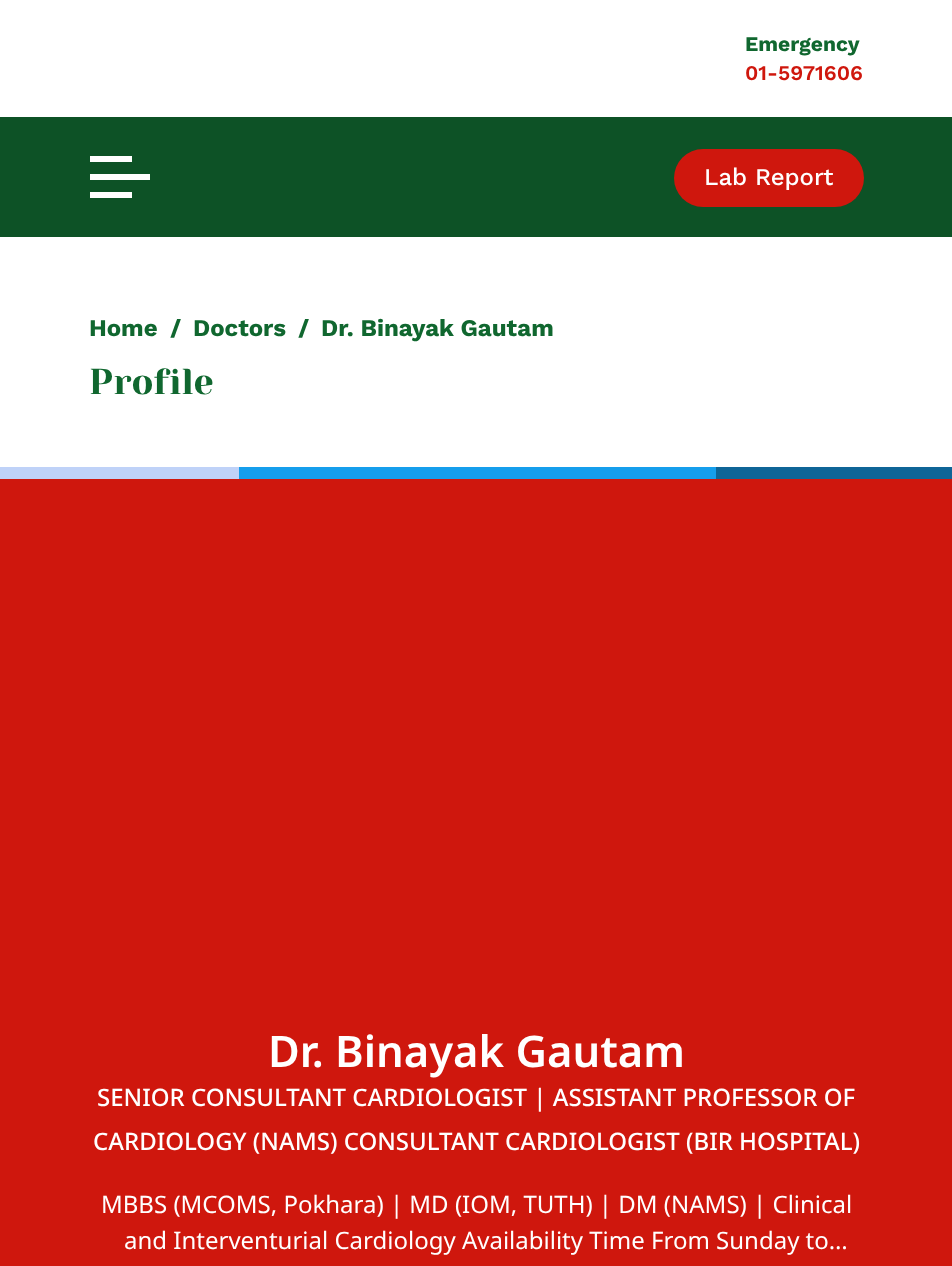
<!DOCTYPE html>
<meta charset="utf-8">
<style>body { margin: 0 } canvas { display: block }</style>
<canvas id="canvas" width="952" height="1266"></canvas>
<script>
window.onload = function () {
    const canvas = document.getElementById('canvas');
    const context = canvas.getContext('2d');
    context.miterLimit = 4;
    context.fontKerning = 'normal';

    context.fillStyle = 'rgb(255, 255, 255)';
    context.fillRect(0, 0, 952, 1266);
    context.fillStyle = 'rgb(13, 82, 38)';
    context.fillRect(0, 117, 952, 120);
    context.fillStyle = 'rgb(255, 255, 255)';
    context.fillRect(90, 174, 60, 6);
    context.fillRect(90, 156, 42, 6);
    context.fillRect(90, 192, 42, 6);
    context.fillStyle = 'rgb(207, 23, 13)';
    context.beginPath();
    context.roundRect(674, 149, 190, 58, 29);
    context.fill();
    context.fillStyle = 'rgb(191, 210, 248)';
    context.fillRect(0, 467, 239, 12);
    context.fillStyle = 'rgb(21, 158, 236)';
    context.fillRect(239, 467, 477, 12);
    context.fillStyle = 'rgb(14, 101, 151)';
    context.fillRect(716, 467, 236, 12);
    context.fillStyle = 'rgb(207, 23, 13)';
    context.fillRect(0, 479, 952, 787);
    context.font = 'bold 21px Work Sans';
    context.fillStyle = 'rgb(16, 103, 47)';
    context.fillText('Emergency', 745, 51);
    context.font = '600 21px Work Sans';
    context.fillStyle = 'rgb(207, 23, 13)';
    context.fillText('01-5971606', 745, 80);
    context.font = '500 24px Work Sans';
    context.fillStyle = 'rgb(255, 255, 255)';
    context.fillText('Lab Report', 704, 185);
    context.font = 'bold 24px Work Sans';
    context.fillStyle = 'rgb(16, 103, 47)';
    context.fillText('Home', 89, 336);
    context.fillText('/', 170, 336);
    context.fillText('Doctors', 193, 336);
    context.fillText('/', 298, 336);
    context.fillText('Dr. Binayak Gautam', 321, 336);
    context.font = '36px Yeseva One';
    context.fillText('Profile', 89, 394);
    context.font = '600 43.5px Noto Sans';
    context.fillStyle = 'rgb(255, 255, 255)';
    context.fillText('Dr. Binayak Gautam', 268, 1067);
    context.font = '500 24px Noto Sans';
    context.fillText('SENIOR CONSULTANT CARDIOLOGIST | ASSISTANT PROFESSOR OF', 97, 1106);
    context.fillText('CARDIOLOGY (NAMS) CONSULTANT CARDIOLOGIST (BIR HOSPITAL)', 93, 1150);
    context.font = '24px Noto Sans';
    context.fillText('MBBS (MCOMS, Pokhara) | MD (IOM, TUTH) | DM (NAMS) | Clinical', 101, 1213);
    context.fillText('and Interventurial Cardiology Availability Time From Sunday to…', 124, 1249);
};
</script>
